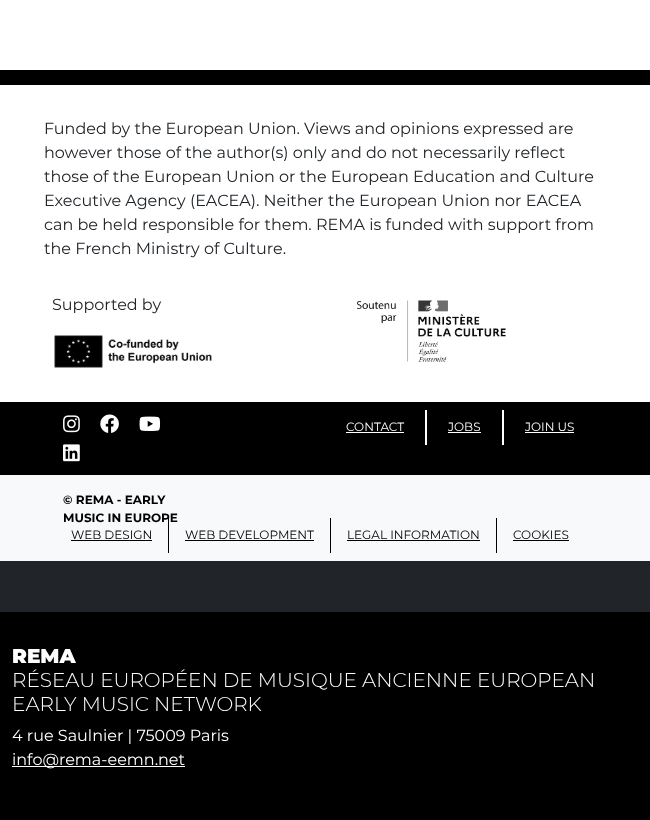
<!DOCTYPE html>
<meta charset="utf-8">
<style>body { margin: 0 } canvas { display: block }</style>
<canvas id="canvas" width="650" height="820"></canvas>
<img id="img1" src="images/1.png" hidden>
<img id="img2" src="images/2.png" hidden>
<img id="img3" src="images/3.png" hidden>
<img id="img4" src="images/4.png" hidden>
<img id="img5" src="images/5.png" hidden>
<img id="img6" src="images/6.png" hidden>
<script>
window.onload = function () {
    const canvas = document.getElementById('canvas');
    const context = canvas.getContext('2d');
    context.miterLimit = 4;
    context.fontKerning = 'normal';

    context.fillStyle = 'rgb(0, 0, 0)';
    context.fillRect(0, 0, 650, 820);
    context.fillStyle = 'rgb(255, 255, 255)';
    context.fillRect(0, 0, 650, 70);
    context.fillRect(0, 85, 650, 317);
    context.drawImage(document.getElementById('img1'), 54, 335, 158, 33);
    context.drawImage(document.getElementById('img2'), 357, 300, 149, 62);
    context.drawImage(document.getElementById('img3'), 63, 415, 17, 18);
    context.drawImage(document.getElementById('img4'), 100, 414, 19, 19);
    context.drawImage(document.getElementById('img5'), 139, 416, 22, 15);
    context.drawImage(document.getElementById('img6'), 63, 444, 17, 18);
    context.fillRect(425, 410, 2, 35);
    context.fillRect(346, 432, 58, 1);
    context.fillRect(502, 410, 2, 35);
    context.fillRect(448, 432, 33, 1);
    context.fillRect(525, 432, 49, 1);
    context.fillStyle = 'rgb(248, 249, 250)';
    context.fillRect(0, 475, 650, 86);
    context.fillStyle = 'rgb(0, 0, 0)';
    context.fillRect(168, 518, 1, 35);
    context.fillRect(71, 540, 81, 1);
    context.fillRect(330, 518, 1, 35);
    context.fillRect(185, 540, 129, 1);
    context.fillRect(496, 518, 1, 35);
    context.fillRect(347, 540, 133, 1);
    context.fillRect(513, 540, 56, 1);
    context.fillStyle = 'rgb(33, 37, 41)';
    context.fillRect(0, 561, 650, 51);
    context.fillStyle = 'rgb(255, 255, 255)';
    context.fillRect(12, 766, 173, 1);
    context.font = '16px Montserrat';
    context.fillStyle = 'rgb(33, 37, 41)';
    context.fillText('Funded by the European Union. Views and opinions expressed are', 44, 134);
    context.fillText('however those of the author(s) only and do not necessarily reflect', 44, 158);
    context.fillText('those of the European Union or the European Education and Culture', 44, 182);
    context.fillText('Executive Agency (EACEA). Neither the European Union nor EACEA', 44, 206);
    context.fillText('can be held responsible for them. REMA is funded with support from', 44, 230);
    context.fillText('the French Ministry of Culture.', 44, 254);
    context.fillText('Supported by', 52, 310);
    context.font = '12px Montserrat';
    context.fillStyle = 'rgb(255, 255, 255)';
    context.fillText('CONTACT', 346, 431);
    context.fillText('JOBS', 448, 431);
    context.fillText('JOIN US', 525, 431);
    context.font = 'bold 12px Montserrat';
    context.fillStyle = 'rgb(0, 0, 0)';
    context.fillText('© REMA - EARLY', 63, 504);
    context.fillText('MUSIC IN EUROPE', 63, 522);
    context.font = '12px Montserrat';
    context.fillText('WEB DESIGN', 71, 539);
    context.fillText('WEB DEVELOPMENT', 185, 539);
    context.fillText('LEGAL INFORMATION', 347, 539);
    context.fillText('COOKIES', 513, 539);
    context.font = '900 20px Montserrat';
    context.fillStyle = 'rgb(255, 255, 255)';
    context.fillText('REMA', 12, 663);
    context.font = '300 20px Montserrat';
    context.fillText('RÉSEAU EUROPÉEN DE MUSIQUE ANCIENNE EUROPEAN', 12, 687);
    context.fillText('EARLY MUSIC NETWORK', 12, 711);
    context.font = '16px Montserrat';
    context.fillText('4 rue Saulnier | 75009 Paris', 12, 741);
    context.fillText('info@rema-eemn.net', 12, 765);
};
</script>
